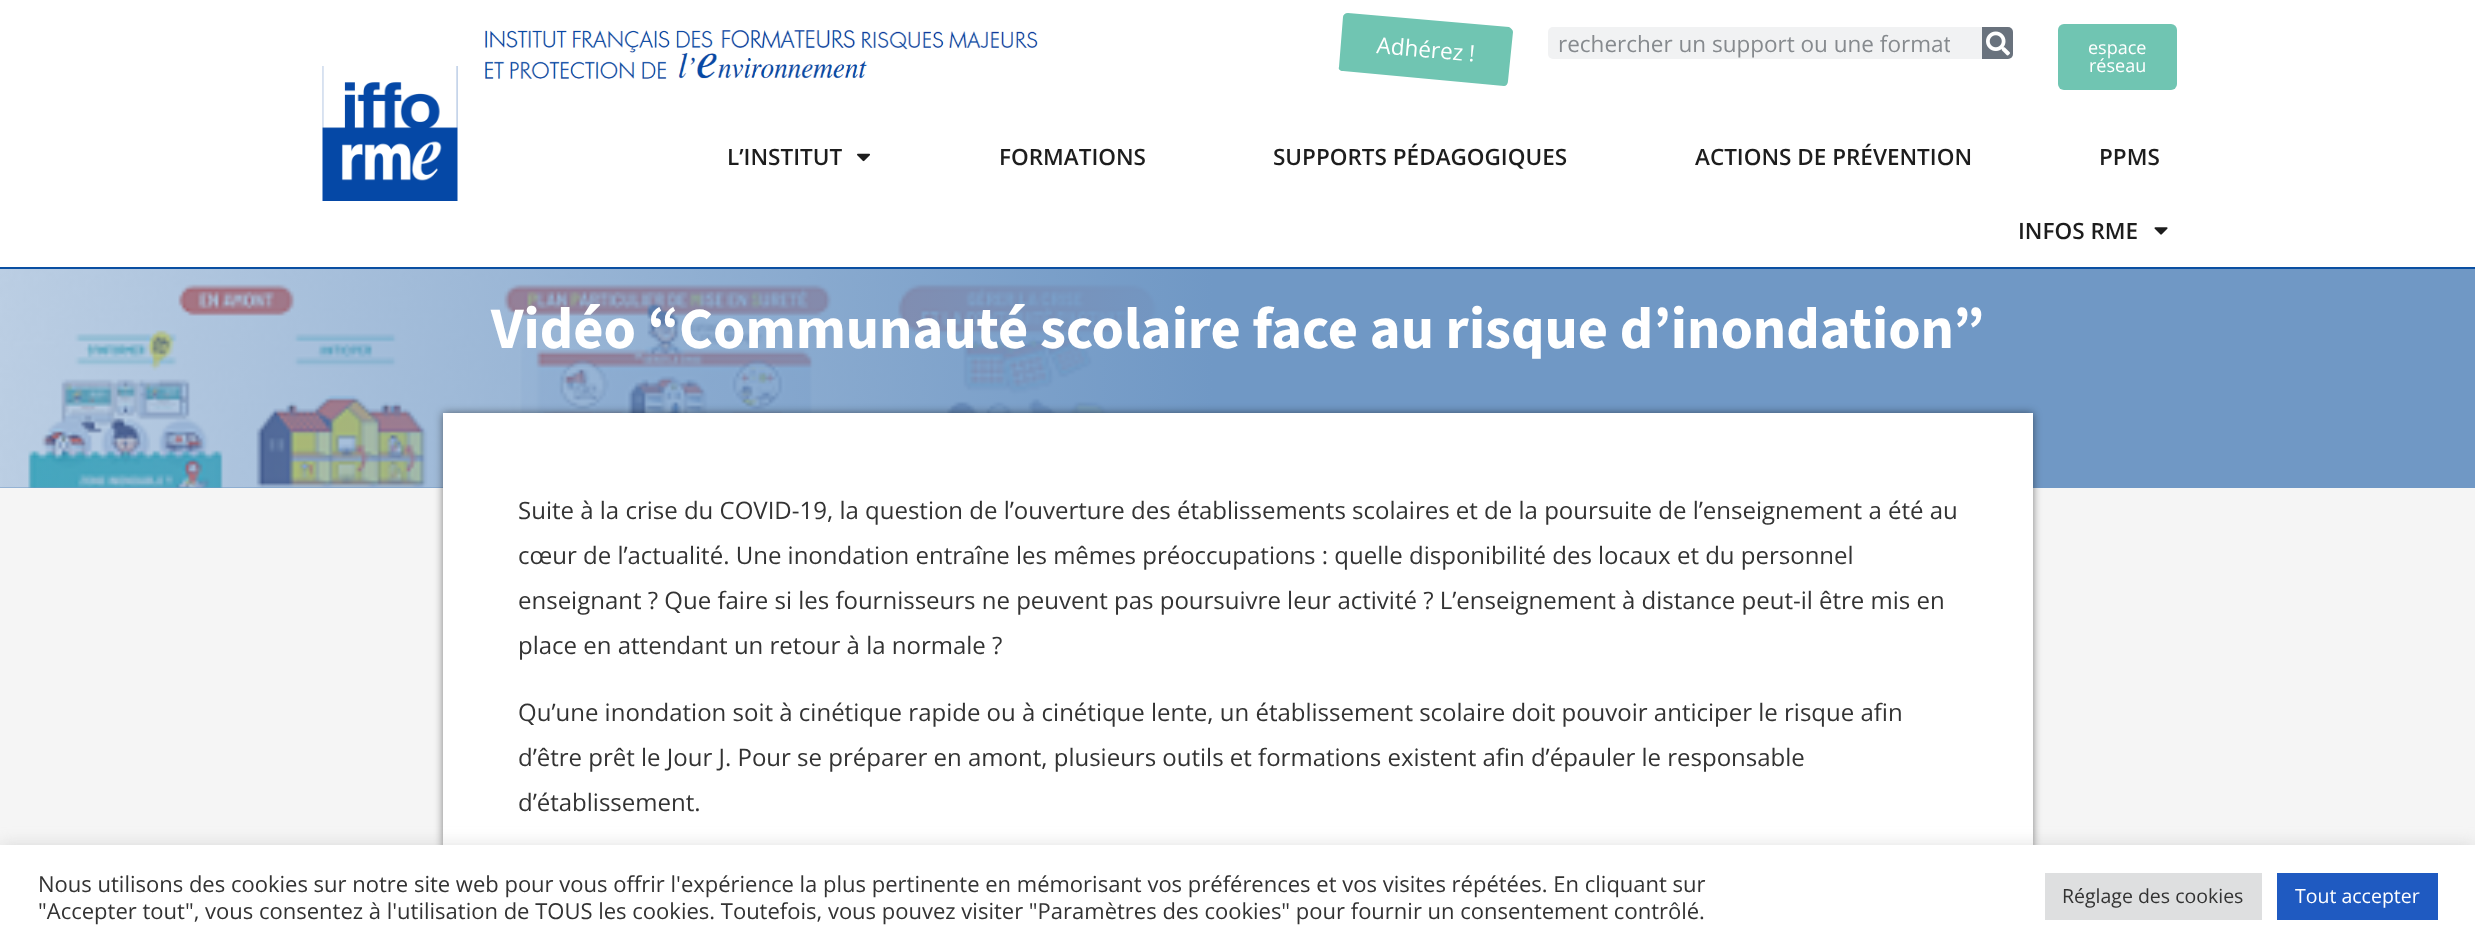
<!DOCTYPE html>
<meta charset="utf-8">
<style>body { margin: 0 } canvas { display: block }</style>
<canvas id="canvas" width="2475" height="947"></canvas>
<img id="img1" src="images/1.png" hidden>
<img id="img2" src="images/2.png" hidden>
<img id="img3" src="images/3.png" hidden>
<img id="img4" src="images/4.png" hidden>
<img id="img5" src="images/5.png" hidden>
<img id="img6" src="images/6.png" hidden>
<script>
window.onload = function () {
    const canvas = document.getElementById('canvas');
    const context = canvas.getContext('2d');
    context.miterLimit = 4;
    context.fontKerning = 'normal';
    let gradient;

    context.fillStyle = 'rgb(245, 245, 245)';
    context.fillRect(0, 0, 2475, 947);
    context.fillStyle = 'rgb(255, 255, 255)';
    context.fillRect(0, 0, 2475, 267);
    context.fillStyle = 'rgb(10, 79, 162)';
    context.fillRect(0, 267, 2475, 2);
    context.drawImage(document.getElementById('img1'), 322, 66, 136, 135);
    context.drawImage(document.getElementById('img2'), 485, 30, 553, 49);
    context.fillStyle = 'rgb(112, 197, 178)';
    context.beginPath();
    context.moveTo(1348, 13);
    context.lineTo(1509, 27);
    context.bezierCurveTo(1511, 28, 1513, 30, 1513, 32);
    context.lineTo(1508, 81);
    context.bezierCurveTo(1508, 84, 1506, 86, 1504, 86);
    context.lineTo(1343, 71);
    context.bezierCurveTo(1340, 71, 1338, 69, 1339, 67);
    context.lineTo(1343, 17);
    context.bezierCurveTo(1343, 15, 1345, 13, 1348, 13);
    context.closePath();
    context.fill();
    context.fillStyle = 'rgb(241, 242, 243)';
    context.beginPath();
    context.roundRect(1548, 27, 465, 32, 5);
    context.fill();
    context.fillStyle = 'rgb(105, 114, 125)';
    context.beginPath();
    context.roundRect(1982, 27, 31, 32, [0, 5, 5, 0]);
    context.fill();
    context.drawImage(document.getElementById('img3'), 1986, 31, 24, 25);
    context.fillStyle = 'rgb(112, 197, 178)';
    context.beginPath();
    context.roundRect(2058, 24, 119, 66, 6);
    context.fill();
    context.drawImage(document.getElementById('img4'), 857, 153, 13, 9);
    context.drawImage(document.getElementById('img5'), 2154, 227, 14, 8);
    context.fillStyle = 'rgb(112, 152, 197)';
    context.fillRect(0, 487, 443, 1);
    context.drawImage(document.getElementById('img6'), 0, 269, 1199, 219);
    gradient = context.createLinearGradient(0, 357, 2475, 357);
    gradient.addColorStop(0, 'rgba(112, 152, 197, 0.47)');
    gradient.addColorStop(0.49, 'rgb(112, 152, 197)');
    context.fillStyle = gradient;
    context.fillRect(0, 269, 2475, 219);
    context.fillStyle = 'rgba(0, 0, 0, 0.49)';
    context.filter = 'blur(4px)';
    context.beginPath();
    context.rect(443, 413, 1590, 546);
    context.fill();
    context.filter = 'none';
    context.fillStyle = 'rgb(255, 255, 255)';
    context.fillRect(443, 413, 1590, 432);
    context.fillStyle = 'rgba(172, 171, 171, 0.3)';
    context.filter = 'blur(7.5px)';
    context.beginPath();
    context.rect(0, 843, 2475, 104);
    context.fill();
    context.filter = 'none';
    context.fillStyle = 'rgb(255, 255, 255)';
    context.fillRect(0, 845, 2475, 102);
    context.fillStyle = 'rgb(222, 223, 224)';
    context.fillRect(2045, 873, 217, 47);
    context.fillStyle = 'rgb(31, 90, 193)';
    context.fillRect(2277, 873, 161, 47);
    context.font = '22.5px Open Sans';
    context.fillStyle = 'rgb(255, 255, 255)';
    context.save();
    context.translate(1376, 53);
    context.rotate(5 * Math.PI / 180);
    context.fillText('Adhérez !', 0, 0);
    context.restore();
    context.save();
    context.beginPath();
    context.rect(1559, 29, 391, 30);
    context.clip();
    context.fillStyle = 'rgb(134, 138, 142)';
    context.fillText('rechercher un support ou une format', 1558, 52);
    context.restore();
    context.font = '18px Open Sans';
    context.fillText('espace', 2088, 54);
    context.fillText('réseau', 2089, 72);
    context.font = '600 22.5px Open Sans';
    context.fillStyle = 'rgb(29, 29, 29)';
    context.fillText('L’INSTITUT', 727, 165);
    context.fillText('FORMATIONS', 999, 165);
    context.fillText('SUPPORTS PÉDAGOGIQUES', 1273, 165);
    context.fillText('ACTIONS DE PRÉVENTION', 1695, 165);
    context.fillText('PPMS', 2099, 165);
    context.fillText('INFOS RME', 2018, 239);
    context.font = 'bold 58.5px "Source Sans 3"';
    context.fillStyle = 'rgb(255, 255, 255)';
    context.fillText('Vidéo “Communauté scolaire face au risque d’inondation”', 491, 348);
    context.font = '24px Open Sans';
    context.fillStyle = 'rgb(51, 51, 51)';
    context.fillText('Suite à la crise du COVID-19, la question de l’ouverture des établissements scolaires et de la poursuite de l’enseignement a été au', 518, 519);
    context.fillText('cœur de l’actualité. Une inondation entraîne les mêmes préoccupations : quelle disponibilité des locaux et du personnel', 518, 564);
    context.fillText('enseignant ? Que faire si les fournisseurs ne peuvent pas poursuivre leur activité ? L’enseignement à distance peut-il être mis en', 518, 609);
    context.fillText('place en attendant un retour à la normale ?', 518, 654);
    context.fillText('Qu’une inondation soit à cinétique rapide ou à cinétique lente, un établissement scolaire doit pouvoir anticiper le risque afin', 518, 721);
    context.fillText('d’être prêt le Jour J. Pour se préparer en amont, plusieurs outils et formations existent afin d’épauler le responsable', 518, 766);
    context.fillText('d’établissement.', 518, 811);
    context.font = '22px Open Sans';
    context.fillText('Nous utilisons des cookies sur notre site web pour vous offrir l\'expérience la plus pertinente en mémorisant vos préférences et vos visites répétées. En cliquant sur', 38, 892);
    context.fillText('"Accepter tout", vous consentez à l\'utilisation de TOUS les cookies. Toutefois, vous pouvez visiter "Paramètres des cookies" pour fournir un consentement contrôlé.', 38, 919);
    context.font = '19.5px Open Sans';
    context.fillText('Réglage des cookies', 2062, 903);
    context.fillStyle = 'rgb(255, 255, 255)';
    context.fillText('Tout accepter', 2295, 903);
};
</script>
